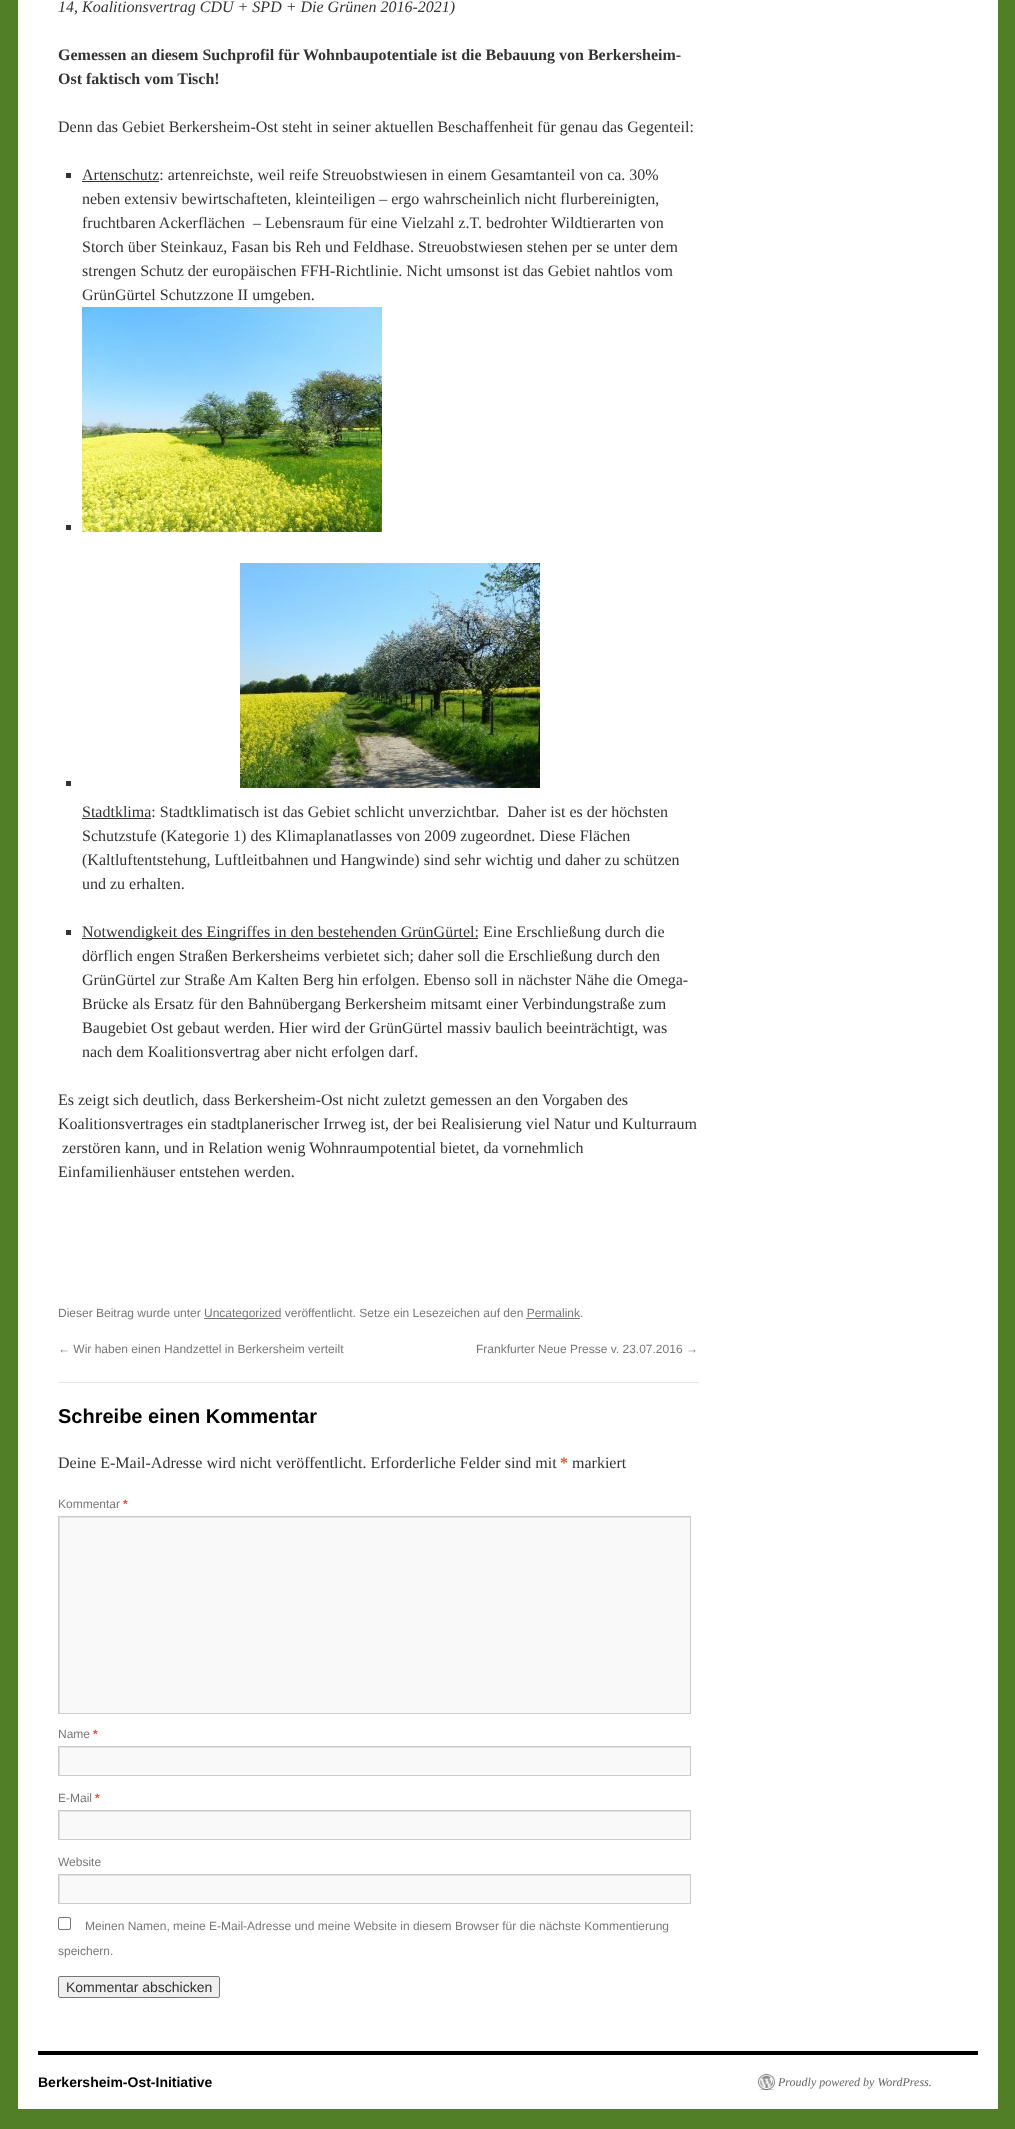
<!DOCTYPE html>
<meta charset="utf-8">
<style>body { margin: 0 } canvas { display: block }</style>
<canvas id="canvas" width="1015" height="2129"></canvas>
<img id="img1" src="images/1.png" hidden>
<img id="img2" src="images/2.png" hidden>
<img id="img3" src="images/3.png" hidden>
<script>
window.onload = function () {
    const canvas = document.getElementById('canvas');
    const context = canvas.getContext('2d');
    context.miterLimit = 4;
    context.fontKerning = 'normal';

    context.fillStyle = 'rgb(80, 127, 39)';
    context.fillRect(0, 0, 1015, 2129);
    context.fillStyle = 'rgb(255, 255, 255)';
    context.fillRect(18, 0, 980, 2109);
    context.fillStyle = 'rgb(51, 51, 51)';
    context.fillRect(66, 173, 5, 5);
    context.fillRect(82, 181, 77, 1);
    context.fillRect(66, 525, 5, 5);
    context.drawImage(document.getElementById('img1'), 82, 307, 300, 225);
    context.fillRect(66, 781, 5, 5);
    context.drawImage(document.getElementById('img2'), 240, 563, 300, 225);
    context.fillRect(82, 818, 69, 1);
    context.fillRect(66, 930, 5, 5);
    context.fillRect(82, 938, 396, 1);
    context.fillStyle = 'rgb(119, 119, 119)';
    context.fillRect(204, 1318, 77, 1);
    context.fillRect(526, 1318, 54, 1);
    context.fillStyle = 'rgb(231, 231, 231)';
    context.fillRect(58, 1382, 640, 1);
    context.fillStyle = 'rgb(249, 249, 249)';
    context.fillRect(60, 1518, 630, 195);
    context.save();
    context.beginPath();
    context.rect(59, 1517, 631, 196);
    context.clip();
    context.fillStyle = 'rgb(224, 224, 224)';
    context.beginPath();
    context.moveTo(-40, 1418);
    context.lineTo(789, 1418);
    context.lineTo(789, 1812);
    context.lineTo(-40, 1812);
    context.closePath();
    context.moveTo(60, 1518);
    context.lineTo(691, 1518);
    context.lineTo(691, 1714);
    context.lineTo(60, 1714);
    context.closePath();
    context.fill('evenodd');
    context.restore();
    context.strokeStyle = 'rgb(204, 204, 204)';
    context.strokeRect(58.5, 1516.5, 632, 197);
    context.fillRect(60, 1748, 630, 27);
    context.save();
    context.beginPath();
    context.rect(59, 1747, 631, 28);
    context.clip();
    context.fillStyle = 'rgb(224, 224, 224)';
    context.beginPath();
    context.moveTo(-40, 1648);
    context.lineTo(789, 1648);
    context.lineTo(789, 1874);
    context.lineTo(-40, 1874);
    context.closePath();
    context.moveTo(60, 1748);
    context.lineTo(691, 1748);
    context.lineTo(691, 1776);
    context.lineTo(60, 1776);
    context.closePath();
    context.fill('evenodd');
    context.restore();
    context.strokeRect(58.5, 1746.5, 632, 29);
    context.fillRect(60, 1812, 630, 27);
    context.save();
    context.beginPath();
    context.rect(59, 1811, 631, 28);
    context.clip();
    context.fillStyle = 'rgb(224, 224, 224)';
    context.beginPath();
    context.moveTo(-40, 1712);
    context.lineTo(789, 1712);
    context.lineTo(789, 1938);
    context.lineTo(-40, 1938);
    context.closePath();
    context.moveTo(60, 1812);
    context.lineTo(691, 1812);
    context.lineTo(691, 1840);
    context.lineTo(60, 1840);
    context.closePath();
    context.fill('evenodd');
    context.restore();
    context.strokeRect(58.5, 1810.5, 632, 29);
    context.fillRect(60, 1876, 630, 27);
    context.save();
    context.beginPath();
    context.rect(59, 1875, 631, 28);
    context.clip();
    context.fillStyle = 'rgb(224, 224, 224)';
    context.beginPath();
    context.moveTo(-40, 1776);
    context.lineTo(789, 1776);
    context.lineTo(789, 2002);
    context.lineTo(-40, 2002);
    context.closePath();
    context.moveTo(60, 1876);
    context.lineTo(691, 1876);
    context.lineTo(691, 1904);
    context.lineTo(60, 1904);
    context.closePath();
    context.fill('evenodd');
    context.restore();
    context.strokeRect(58.5, 1874.5, 632, 29);
    context.beginPath();
    context.roundRect(58.5, 1917.5, 12, 12, 1.5);
    context.strokeStyle = 'rgb(118, 118, 118)';
    context.stroke();
    context.fillStyle = 'rgb(239, 239, 239)';
    context.beginPath();
    context.roundRect(58.5, 1976.5, 161, 21, 1.5);
    context.fill();
    context.stroke();
    context.fillStyle = 'rgb(0, 0, 0)';
    context.fillRect(38, 2051, 940, 4);
    context.drawImage(document.getElementById('img3'), 758, 2074, 17, 16);
    context.font = 'italic 16px Liberation Serif';
    context.fillStyle = 'rgb(51, 51, 51)';
    context.fillText('14, Koalitionsvertrag CDU + SPD + Die Grünen 2016-2021)', 58, 12);
    context.font = 'bold 16px Liberation Serif';
    context.fillText('Gemessen an diesem Suchprofil für Wohnbaupotentiale ist die Bebauung von Berkersheim-', 58, 60);
    context.fillText('Ost faktisch vom Tisch!', 58, 84);
    context.font = '16px Liberation Serif';
    context.fillText('Denn das Gebiet Berkersheim-Ost steht in seiner aktuellen Beschaffenheit für genau das Gegenteil:', 58, 132);
    context.fillText('Artenschutz: artenreichste, weil reife Streuobstwiesen in einem Gesamtanteil von ca. 30%', 82, 180);
    context.fillText('neben extensiv bewirtschafteten, kleinteiligen – ergo wahrscheinlich nicht flurbereinigten,', 82, 204);
    context.fillText('fruchtbaren Ackerflächen  – Lebensraum für eine Vielzahl z.T. bedrohter Wildtierarten von', 82, 228);
    context.fillText('Storch über Steinkauz, Fasan bis Reh und Feldhase. Streuobstwiesen stehen per se unter dem', 82, 252);
    context.fillText('strengen Schutz der europäischen FFH-Richtlinie. Nicht umsonst ist das Gebiet nahtlos vom', 82, 276);
    context.fillText('GrünGürtel Schutzzone II umgeben.', 82, 300);
    context.fillText('Stadtklima: Stadtklimatisch ist das Gebiet schlicht unverzichtbar.  Daher ist es der höchsten', 82, 817);
    context.fillText('Schutzstufe (Kategorie 1) des Klimaplanatlasses von 2009 zugeordnet. Diese Flächen', 82, 841);
    context.fillText('(Kaltluftentstehung, Luftleitbahnen und Hangwinde) sind sehr wichtig und daher zu schützen', 82, 865);
    context.fillText('und zu erhalten.', 82, 889);
    context.fillText('Notwendigkeit des Eingriffes in den bestehenden GrünGürtel: Eine Erschließung durch die', 82, 937);
    context.fillText('dörflich engen Straßen Berkersheims verbietet sich; daher soll die Erschließung durch den', 82, 961);
    context.fillText('GrünGürtel zur Straße Am Kalten Berg hin erfolgen. Ebenso soll in nächster Nähe die Omega-', 82, 985);
    context.fillText('Brücke als Ersatz für den Bahnübergang Berkersheim mitsamt einer Verbindungstraße zum', 82, 1009);
    context.fillText('Baugebiet Ost gebaut werden. Hier wird der GrünGürtel massiv baulich beeinträchtigt, was', 82, 1033);
    context.fillText('nach dem Koalitionsvertrag aber nicht erfolgen darf.', 82, 1057);
    context.fillText('Es zeigt sich deutlich, dass Berkersheim-Ost nicht zuletzt gemessen an den Vorgaben des', 58, 1105);
    context.fillText('Koalitionsvertrages ein stadtplanerischer Irrweg ist, der bei Realisierung viel Natur und Kulturraum', 58, 1129);
    context.fillText('zerstören kann, und in Relation wenig Wohnraumpotential bietet, da vornehmlich', 62, 1153);
    context.fillText('Einfamilienhäuser entstehen werden.', 58, 1177);
    context.font = '12px Liberation Sans';
    context.fillStyle = 'rgb(119, 119, 119)';
    context.fillText('Dieser Beitrag wurde unter', 58, 1317);
    context.fillText('Uncategorized veröffentlicht. Setze ein Lesezeichen auf den Permalink.', 204, 1317);
    context.fillText('← Wir haben einen Handzettel in Berkersheim verteilt', 58, 1353);
    context.fillText('Frankfurter Neue Presse v. 23.07.2016 →', 476, 1353);
    context.font = 'bold 20px Liberation Sans';
    context.fillStyle = 'rgb(0, 0, 0)';
    context.fillText('Schreibe einen Kommentar', 58, 1423);
    context.font = '16px Liberation Serif';
    context.fillStyle = 'rgb(51, 51, 51)';
    context.fillText('Deine E-Mail-Adresse wird nicht veröffentlicht. Erforderliche Felder sind mit', 58, 1468);
    context.font = 'bold 16px Liberation Serif';
    context.fillStyle = 'rgb(255, 75, 51)';
    context.fillText('*', 560, 1468);
    context.font = '16px Liberation Serif';
    context.fillStyle = 'rgb(51, 51, 51)';
    context.fillText('markiert', 572, 1468);
    context.font = '12px Liberation Sans';
    context.fillStyle = 'rgb(119, 119, 119)';
    context.fillText('Kommentar', 58, 1508);
    context.font = 'bold 12px Liberation Sans';
    context.fillStyle = 'rgb(255, 75, 51)';
    context.fillText('*', 123, 1508);
    context.font = '12px Liberation Sans';
    context.fillStyle = 'rgb(119, 119, 119)';
    context.fillText('Name', 58, 1738);
    context.font = 'bold 12px Liberation Sans';
    context.fillStyle = 'rgb(255, 75, 51)';
    context.fillText('*', 93, 1738);
    context.font = '12px Liberation Sans';
    context.fillStyle = 'rgb(119, 119, 119)';
    context.fillText('E-Mail', 58, 1802);
    context.font = 'bold 12px Liberation Sans';
    context.fillStyle = 'rgb(255, 75, 51)';
    context.fillText('*', 95, 1802);
    context.font = '12px Liberation Sans';
    context.fillStyle = 'rgb(119, 119, 119)';
    context.fillText('Website', 58, 1866);
    context.fillText('Meinen Namen, meine E-Mail-Adresse und meine Website in diesem Browser für die nächste Kommentierung', 85, 1930);
    context.fillText('speichern.', 58, 1955);
    context.font = '14px Liberation Sans';
    context.fillStyle = 'rgb(51, 51, 51)';
    context.fillText('Kommentar abschicken', 66, 1992);
    context.font = 'bold 14px Liberation Sans';
    context.fillStyle = 'rgb(0, 0, 0)';
    context.fillText('Berkersheim-Ost-Initiative', 38, 2087);
    context.font = 'italic 12px Liberation Serif';
    context.fillStyle = 'rgb(102, 102, 102)';
    context.fillText('Proudly powered by WordPress.', 778, 2086);
};
</script>
